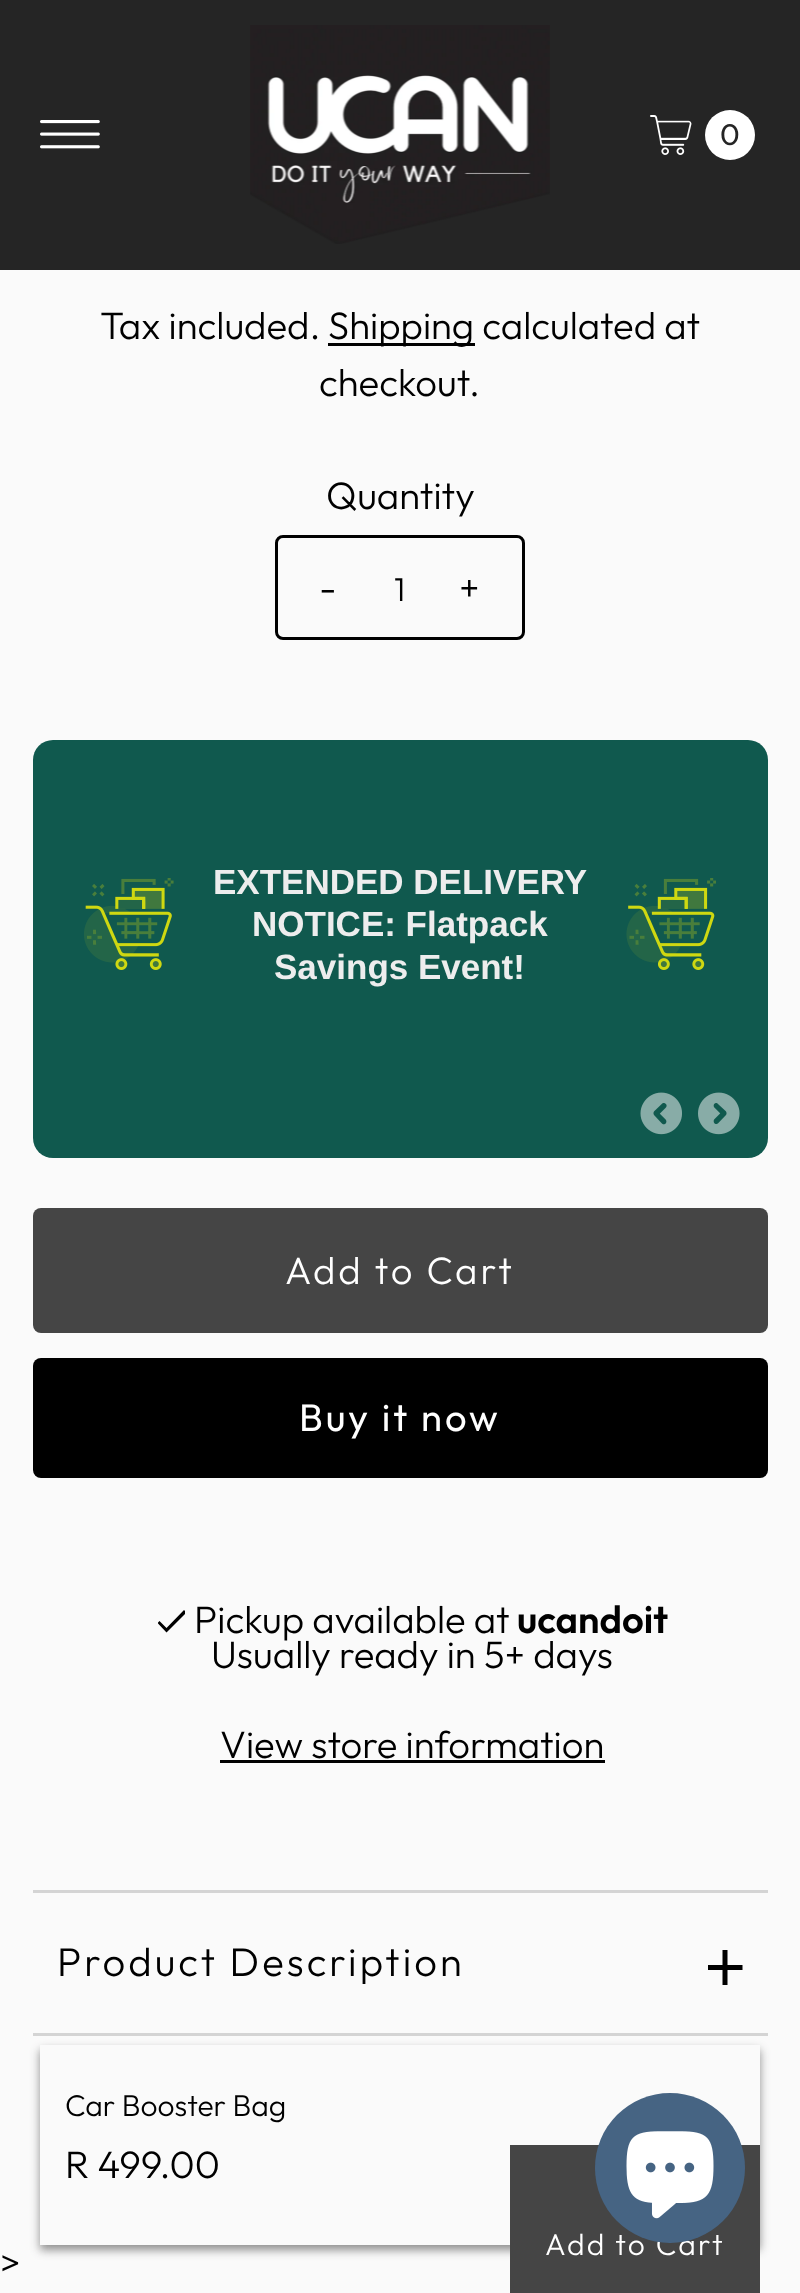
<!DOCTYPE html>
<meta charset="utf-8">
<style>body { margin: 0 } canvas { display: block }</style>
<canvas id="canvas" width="800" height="2293"></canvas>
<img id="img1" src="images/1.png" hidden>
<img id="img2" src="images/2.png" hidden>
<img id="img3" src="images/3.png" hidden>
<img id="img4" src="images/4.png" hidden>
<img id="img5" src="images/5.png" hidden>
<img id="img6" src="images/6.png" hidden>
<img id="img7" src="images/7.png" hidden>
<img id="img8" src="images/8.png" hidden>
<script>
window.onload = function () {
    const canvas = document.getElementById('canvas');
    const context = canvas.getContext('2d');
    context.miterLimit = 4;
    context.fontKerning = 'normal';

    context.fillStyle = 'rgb(250, 250, 250)';
    context.fillRect(0, 0, 800, 2293);
    context.fillStyle = 'rgb(37, 37, 37)';
    context.fillRect(0, 0, 800, 270);
    context.drawImage(document.getElementById('img1'), 40, 120, 60, 29);
    context.drawImage(document.getElementById('img2'), 250, 25, 300, 219);
    context.drawImage(document.getElementById('img3'), 650, 115, 42, 40);
    context.fillStyle = 'rgb(255, 255, 255)';
    context.beginPath();
    context.arc(730, 135, 25, 0, 2 * Math.PI);
    context.fill();
    context.fillStyle = 'rgb(0, 0, 0)';
    context.fillRect(328, 343, 147, 3);
    context.beginPath();
    context.roundRect(276.5, 536.5, 247, 102, 6.5);
    context.strokeStyle = 'rgb(0, 0, 0)';
    context.lineWidth = 3;
    context.stroke();
    context.fillStyle = 'rgb(16, 89, 78)';
    context.beginPath();
    context.roundRect(33, 740, 735, 418, 20);
    context.fill();
    context.drawImage(document.getElementById('img4'), 84, 878, 90, 92);
    context.drawImage(document.getElementById('img5'), 626, 878, 90, 92);
    context.drawImage(document.getElementById('img6'), 640, 1092, 42, 43);
    context.drawImage(document.getElementById('img7'), 698, 1092, 42, 43);
    context.fillStyle = 'rgb(69, 69, 69)';
    context.beginPath();
    context.roundRect(33, 1208, 735, 125, 8);
    context.fill();
    context.fillStyle = 'rgb(0, 0, 0)';
    context.beginPath();
    context.roundRect(33, 1358, 735, 120, 8);
    context.fill();
    context.save();
    context.beginPath();
    context.rect(158, 1610, 27, 23);
    context.clip();
    context.beginPath();
    context.moveTo(166.5, 1628);
    context.lineTo(159.5, 1621);
    context.lineTo(157.5, 1623);
    context.lineTo(166.5, 1632.5);
    context.lineTo(186.5, 1612.5);
    context.lineTo(184, 1610);
    context.closePath();
    context.fill();
    context.restore();
    context.fillRect(220, 1760, 385, 3);
    context.fillStyle = 'rgb(212, 212, 212)';
    context.fillRect(33, 1890, 735, 3);
    context.save();
    context.beginPath();
    context.rect(708, 1950, 35, 35);
    context.clip();
    context.fillStyle = 'rgb(0, 0, 0)';
    context.beginPath();
    context.moveTo(742.5, 1970);
    context.lineTo(727.5, 1970);
    context.lineTo(727.5, 1985);
    context.lineTo(722.5, 1985);
    context.lineTo(722.5, 1970);
    context.lineTo(707.5, 1970);
    context.lineTo(707.5, 1965);
    context.lineTo(722.5, 1965);
    context.lineTo(722.5, 1950);
    context.lineTo(727.5, 1950);
    context.lineTo(727.5, 1965);
    context.lineTo(742.5, 1965);
    context.closePath();
    context.fill();
    context.restore();
    context.fillRect(33, 2033, 735, 3);
    context.fillStyle = 'rgba(34, 34, 34, 0.5)';
    context.filter = 'blur(5px)';
    context.beginPath();
    context.rect(40, 2050, 720, 200);
    context.fill();
    context.filter = 'none';
    context.fillStyle = 'rgb(250, 250, 250)';
    context.fillRect(40, 2045, 720, 200);
    context.fillStyle = 'rgb(69, 69, 69)';
    context.fillRect(510, 2145, 250, 148);
    context.font = '30px Outfit';
    context.fillStyle = 'rgb(37, 37, 37)';
    context.fillText('0', 720, 145);
    context.font = '300 38.25px Outfit';
    context.fillStyle = 'rgb(0, 0, 0)';
    context.fillText('Tax included.', 100, 339);
    context.fillText('Shipping calculated at', 328, 339);
    context.fillText('checkout.', 319, 396);
    context.fillText('Quantity', 326, 509);
    context.letterSpacing = '2.9px';
    context.fillText('-', 319, 601);
    context.letterSpacing = '0px';
    context.font = '300 33px Outfit';
    context.fillText('1', 394, 601);
    context.letterSpacing = '2.9px';
    context.font = '300 38.25px Outfit';
    context.fillText('+', 459, 601);
    context.letterSpacing = '0px';
    context.font = 'bold 35px Liberation Sans';
    context.fillStyle = 'rgb(237, 237, 237)';
    context.fillText('EXTENDED DELIVERY', 213, 894);
    context.fillText('NOTICE: Flatpack', 252, 936);
    context.fillText('Savings Event!', 274, 979);
    context.letterSpacing = '2.9px';
    context.font = '300 38.25px Outfit';
    context.fillStyle = 'rgb(255, 255, 255)';
    context.fillText('Add to Cart', 285, 1284);
    context.font = '38.25px Outfit';
    context.fillText('Buy it now', 299, 1431);
    context.letterSpacing = '0px';
    context.font = '300 38.25px Outfit';
    context.fillStyle = 'rgb(0, 0, 0)';
    context.fillText('Pickup available at', 194, 1633);
    context.font = '600 38.25px Outfit';
    context.fillText('ucandoit', 517, 1633);
    context.font = '300 38.25px Outfit';
    context.fillText('Usually ready in 5+ days', 211, 1668);
    context.fillText('View store information', 220, 1758);
    context.letterSpacing = '3px';
    context.font = '300 40px Outfit';
    context.fillText('Product Description', 57, 1976);
    context.letterSpacing = '0px';
    context.font = '300 30px Outfit';
    context.fillText('Car Booster Bag', 65, 2116);
    context.font = '300 38.25px Outfit';
    context.fillText('R 499.00', 65, 2178);
    context.letterSpacing = '2.25px';
    context.font = '300 30px Outfit';
    context.fillStyle = 'rgb(255, 255, 255)';
    context.fillText('Add to Cart', 545, 2255);
    context.letterSpacing = '0px';
    context.font = '300 38.25px Outfit';
    context.fillStyle = 'rgb(0, 0, 0)';
    context.fillText('>', 0, 2276);
    context.fillStyle = 'rgb(70, 100, 131)';
    context.beginPath();
    context.arc(670, 2168, 75, 0, 2 * Math.PI);
    context.fill();
    context.drawImage(document.getElementById('img8'), 626, 2131, 88, 88);
};
</script>
